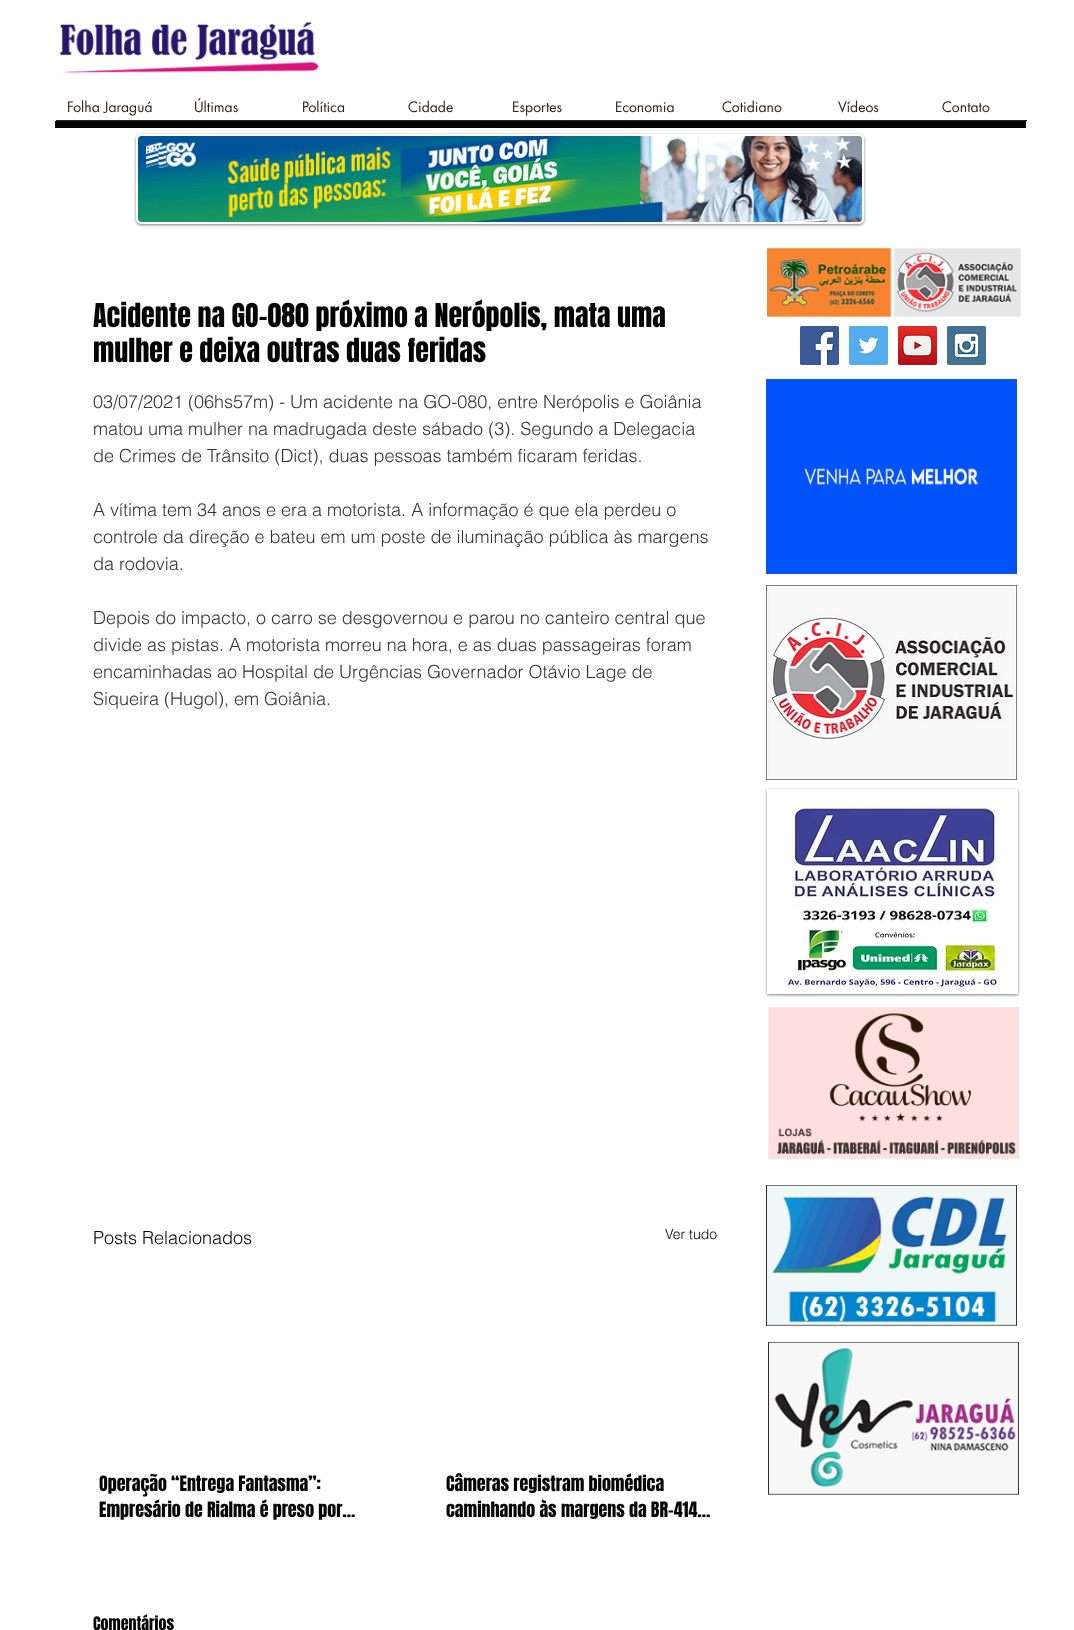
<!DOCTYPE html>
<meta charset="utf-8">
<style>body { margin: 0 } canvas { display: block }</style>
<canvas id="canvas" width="1074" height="1630"></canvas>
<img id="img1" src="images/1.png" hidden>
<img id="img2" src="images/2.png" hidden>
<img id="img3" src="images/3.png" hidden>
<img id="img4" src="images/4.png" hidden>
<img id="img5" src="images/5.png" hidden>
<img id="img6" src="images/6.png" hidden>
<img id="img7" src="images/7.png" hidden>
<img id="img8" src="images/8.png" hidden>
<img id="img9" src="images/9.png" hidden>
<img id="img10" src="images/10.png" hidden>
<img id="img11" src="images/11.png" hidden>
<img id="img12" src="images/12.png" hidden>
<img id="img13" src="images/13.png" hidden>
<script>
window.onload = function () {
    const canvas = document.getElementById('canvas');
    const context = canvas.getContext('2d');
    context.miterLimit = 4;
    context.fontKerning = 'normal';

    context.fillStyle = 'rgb(255, 255, 255)';
    context.fillRect(0, 0, 1074, 1630);
    context.drawImage(document.getElementById('img1'), 59, 22, 260, 52);
    context.fillStyle = 'rgb(52, 34, 22)';
    context.fillRect(56, 120, 971, 1);
    context.fillStyle = 'rgb(3, 3, 3)';
    context.fillRect(55, 121, 971, 7);
    context.fillStyle = 'rgba(0, 0, 0, 0.5)';
    context.filter = 'blur(1.5px)';
    context.beginPath();
    context.roundRect(136, 135, 728, 90, 5);
    context.fill();
    context.filter = 'none';
    context.fillStyle = 'rgb(255, 255, 255)';
    context.beginPath();
    context.roundRect(137, 135, 726, 88, 4);
    context.fill();
    context.strokeStyle = 'rgb(255, 255, 255)';
    context.lineWidth = 2;
    context.stroke();
    context.drawImage(document.getElementById('img2'), 138, 136, 724, 86);
    context.drawImage(document.getElementById('img3'), 767, 248, 254, 69);
    context.drawImage(document.getElementById('img4'), 800, 326, 39, 39);
    context.drawImage(document.getElementById('img5'), 849, 326, 39, 39);
    context.drawImage(document.getElementById('img6'), 898, 326, 39, 39);
    context.drawImage(document.getElementById('img7'), 947, 326, 39, 39);
    context.drawImage(document.getElementById('img8'), 766, 379, 251, 195);
    context.drawImage(document.getElementById('img9'), 766, 585, 251, 195);
    context.save();
    context.beginPath();
    context.moveTo(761, 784);
    context.lineTo(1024, 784);
    context.lineTo(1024, 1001);
    context.lineTo(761, 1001);
    context.closePath();
    context.moveTo(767, 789);
    context.lineTo(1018, 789);
    context.lineTo(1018, 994);
    context.lineTo(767, 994);
    context.closePath();
    context.clip('evenodd');
    context.fillStyle = 'rgba(0, 0, 0, 0.5)';
    context.filter = 'blur(1.5px)';
    context.beginPath();
    context.rect(767, 790, 251, 205);
    context.fill();
    context.filter = 'none';
    context.restore();
    context.drawImage(document.getElementById('img10'), 787, 806, 212, 182);
    context.drawImage(document.getElementById('img11'), 768, 1007, 251, 152);
    context.drawImage(document.getElementById('img12'), 766, 1185, 251, 141);
    context.drawImage(document.getElementById('img13'), 768, 1342, 251, 153);
    context.font = '14px futura';
    context.fillStyle = 'rgb(52, 34, 22)';
    context.fillText('Folha Jaraguá', 67, 112);
    context.fillText('Últimas', 194, 112);
    context.fillText('Política', 302, 112);
    context.fillText('Cidade', 408, 112);
    context.fillText('Esportes', 512, 112);
    context.fillText('Economia', 615, 112);
    context.fillText('Cotidiano', 722, 112);
    context.fillText('Vídeos', 838, 112);
    context.fillText('Contato', 942, 112);
    context.font = '28px Anton';
    context.fillStyle = 'rgb(3, 3, 3)';
    context.fillText('Acidente na GO-080 próximo a Nerópolis, mata uma', 93, 327);
    context.fillText('mulher e deixa outras duas feridas', 93, 362);
    context.font = '300 18px helvetica';
    context.fillStyle = 'rgb(51, 51, 51)';
    context.fillText('03/07/2021 (06hs57m) - Um acidente na GO-080, entre Nerópolis e Goiânia', 93, 408);
    context.fillText('matou uma mulher na madrugada deste sábado (3). Segundo a Delegacia', 93, 435);
    context.fillText('de Crimes de Trânsito (Dict), duas pessoas também ficaram feridas.', 93, 462);
    context.fillText('A vítima tem 34 anos e era a motorista. A informação é que ela perdeu o', 93, 516);
    context.fillText('controle da direção e bateu em um poste de iluminação pública às margens', 93, 543);
    context.fillText('da rodovia.', 93, 570);
    context.fillText('Depois do impacto, o carro se desgovernou e parou no canteiro central que', 93, 624);
    context.fillText('divide as pistas. A motorista morreu na hora, e as duas passageiras foram', 93, 651);
    context.fillText('encaminhadas ao Hospital de Urgências Governador Otávio Lage de', 93, 678);
    context.fillText('Siqueira (Hugol), em Goiânia.', 93, 705);
    context.fillStyle = 'rgb(3, 3, 3)';
    context.fillText('Posts Relacionados', 93, 1244);
    context.font = '300 14px helvetica';
    context.fillText('Ver tudo', 665, 1239);
    context.font = '18px Anton';
    context.fillText('Operação “Entrega Fantasma”:', 99, 1491);
    context.fillText('Empresário de Rialma é preso por…', 99, 1517);
    context.fillText('Câmeras registram biomédica', 446, 1491);
    context.fillText('caminhando às margens da BR-414…', 446, 1517);
    context.font = '16px Anton';
    context.fillText('Comentários', 93, 1630);
};
</script>
